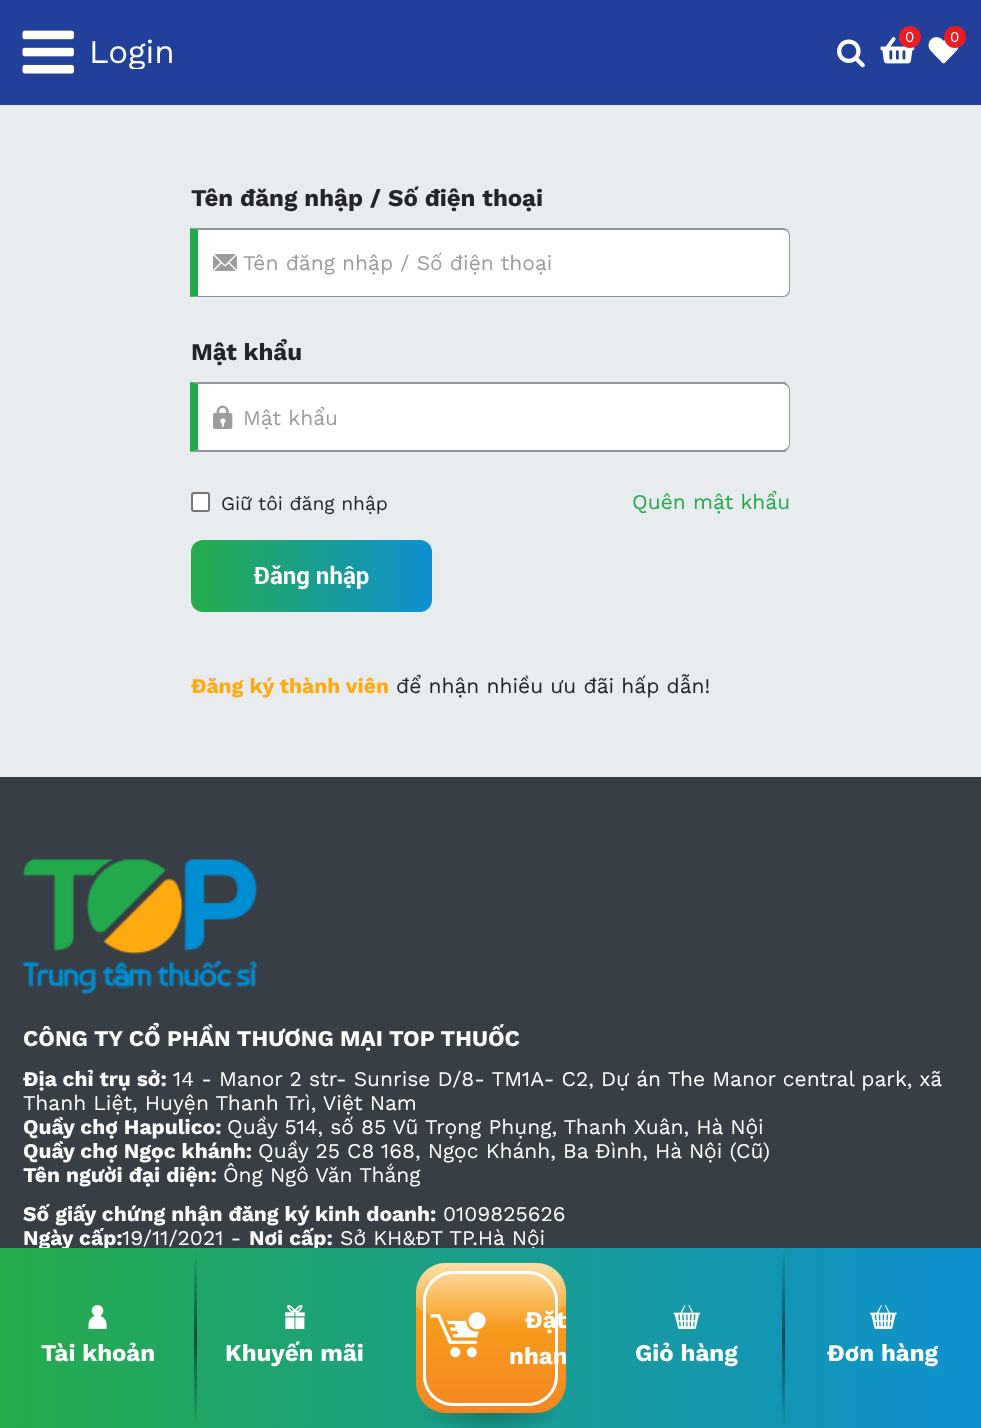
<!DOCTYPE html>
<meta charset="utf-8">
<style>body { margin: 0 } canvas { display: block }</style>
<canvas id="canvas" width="981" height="1428"></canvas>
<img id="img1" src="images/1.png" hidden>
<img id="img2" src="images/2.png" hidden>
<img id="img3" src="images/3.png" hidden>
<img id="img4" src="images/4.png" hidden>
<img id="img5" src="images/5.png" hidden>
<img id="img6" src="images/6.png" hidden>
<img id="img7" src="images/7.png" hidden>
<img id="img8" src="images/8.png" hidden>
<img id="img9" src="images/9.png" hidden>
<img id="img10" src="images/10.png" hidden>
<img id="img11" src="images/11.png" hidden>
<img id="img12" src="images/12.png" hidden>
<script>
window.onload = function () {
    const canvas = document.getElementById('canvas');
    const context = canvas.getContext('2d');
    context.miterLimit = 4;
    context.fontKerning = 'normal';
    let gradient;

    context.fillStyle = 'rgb(233, 236, 239)';
    context.fillRect(0, 0, 981, 1428);
    context.fillStyle = 'rgb(34, 64, 154)';
    context.fillRect(0, 0, 981, 105);
    context.drawImage(document.getElementById('img1'), 880, 37, 35, 27);
    context.fillStyle = 'rgb(236, 28, 36)';
    context.beginPath();
    context.arc(910, 37, 11, 0, 2 * Math.PI);
    context.fill();
    context.drawImage(document.getElementById('img2'), 928, 37, 31, 27);
    context.beginPath();
    context.arc(955, 37, 11, 0, 2 * Math.PI);
    context.fill();
    context.drawImage(document.getElementById('img3'), 837, 39, 28, 29);
    context.drawImage(document.getElementById('img4'), 22, 30, 52, 44);
    context.fillStyle = 'rgb(255, 255, 255)';
    context.beginPath();
    context.roundRect(198, 230, 591, 66, [0, 6, 6, 0]);
    context.fill();
    context.drawImage(document.getElementById('img5'), 213, 254, 24, 17);
    context.fillStyle = 'rgb(146, 148, 151)';
    context.beginPath();
    context.moveTo(190, 228);
    context.lineTo(200, 230);
    context.lineTo(783, 230);
    context.bezierCurveTo(784, 230, 786, 230, 787, 231);
    context.lineTo(788, 230);
    context.bezierCurveTo(787, 229, 785, 228, 783, 228);
    context.closePath();
    context.fill();
    context.beginPath();
    context.moveTo(788, 230);
    context.bezierCurveTo(789, 232, 790, 234, 790, 236);
    context.lineTo(790, 290);
    context.bezierCurveTo(790, 292, 789, 294, 788, 295);
    context.lineTo(787, 294);
    context.bezierCurveTo(788, 293, 789, 291, 789, 290);
    context.lineTo(789, 236);
    context.bezierCurveTo(789, 234, 788, 232, 787, 231);
    context.closePath();
    context.fill();
    context.beginPath();
    context.moveTo(190, 297);
    context.lineTo(783, 297);
    context.bezierCurveTo(785, 297, 787, 296, 788, 295);
    context.lineTo(787, 294);
    context.bezierCurveTo(786, 295, 785, 296, 783, 296);
    context.lineTo(198, 296);
    context.closePath();
    context.fill();
    context.fillStyle = 'rgb(34, 169, 74)';
    context.beginPath();
    context.moveTo(198, 230);
    context.lineTo(200, 230);
    context.lineTo(190, 228);
    context.lineTo(190, 297);
    context.lineTo(198, 296);
    context.closePath();
    context.fill();
    context.fillStyle = 'rgb(255, 255, 255)';
    context.beginPath();
    context.roundRect(198, 384, 591, 66, [0, 6, 6, 0]);
    context.fill();
    context.drawImage(document.getElementById('img6'), 213, 405, 20, 24);
    context.fillStyle = 'rgb(146, 148, 151)';
    context.beginPath();
    context.moveTo(198, 384);
    context.lineTo(190, 382);
    context.lineTo(785, 382);
    context.lineTo(788, 385);
    context.lineTo(787, 386);
    context.bezierCurveTo(786, 385, 784, 384, 783, 384);
    context.closePath();
    context.fill();
    context.beginPath();
    context.moveTo(788, 385);
    context.bezierCurveTo(789, 386, 790, 388, 790, 390);
    context.lineTo(790, 444);
    context.bezierCurveTo(790, 446, 789, 448, 788, 449);
    context.lineTo(787, 448);
    context.bezierCurveTo(788, 447, 789, 446, 789, 444);
    context.lineTo(789, 390);
    context.bezierCurveTo(789, 388, 788, 387, 787, 386);
    context.closePath();
    context.fill();
    context.beginPath();
    context.moveTo(788, 449);
    context.lineTo(785, 452);
    context.lineTo(190, 452);
    context.lineTo(198, 450);
    context.lineTo(783, 450);
    context.bezierCurveTo(784, 450, 786, 449, 787, 448);
    context.closePath();
    context.fill();
    context.fillStyle = 'rgb(34, 169, 74)';
    context.beginPath();
    context.moveTo(190, 452);
    context.lineTo(198, 450);
    context.lineTo(198, 384);
    context.lineTo(190, 382);
    context.closePath();
    context.fill();
    context.fillStyle = 'rgb(255, 255, 255)';
    context.beginPath();
    context.roundRect(192, 493, 17, 18, 2);
    context.fill();
    context.strokeStyle = 'rgb(118, 118, 118)';
    context.lineWidth = 2;
    context.stroke();
    gradient = context.createLinearGradient(191, 576, 432, 576);
    gradient.addColorStop(0, 'rgb(37, 171, 74)');
    gradient.addColorStop(1, 'rgb(14, 144, 208)');
    context.fillStyle = gradient;
    context.beginPath();
    context.roundRect(191, 540, 241, 72, 12);
    context.fill();
    context.fillStyle = 'rgb(56, 62, 69)';
    context.fillRect(0, 777, 981, 471);
    context.drawImage(document.getElementById('img7'), 22, 859, 235, 136);
    context.font = '15px Work Sans';
    context.fillStyle = 'rgb(255, 255, 255)';
    context.fillText('0', 905, 42);
    context.fillText('0', 950, 42);
    context.save();
    context.beginPath();
    context.rect(89, 36, 696, 33);
    context.clip();
    context.font = '33px Work Sans';
    context.fillText('Login', 89, 63);
    context.restore();
    context.font = 'bold 24px Work Sans';
    context.fillStyle = 'rgb(35, 37, 39)';
    context.fillText('Tên đăng nhập / Số điện thoại', 191, 206);
    context.font = '21px Work Sans';
    context.fillStyle = 'rgb(156, 156, 156)';
    context.fillText('Tên đăng nhập / Số điện thoại', 243, 270);
    context.font = 'bold 24px Work Sans';
    context.fillStyle = 'rgb(35, 37, 39)';
    context.fillText('Mật khẩu', 191, 360);
    context.save();
    context.beginPath();
    context.rect(243, 405, 530, 24);
    context.clip();
    context.font = '21px Work Sans';
    context.fillStyle = 'rgb(156, 156, 156)';
    context.fillText('Mật khẩu', 243, 425);
    context.restore();
    context.font = '19.25px Work Sans';
    context.fillText('Giữ tôi đăng nhập', 221, 510);
    context.font = '21px Work Sans';
    context.fillStyle = 'rgb(34, 169, 74)';
    context.fillText('Quên mật khẩu', 632, 509);
    context.font = 'bold 24px Roboto';
    context.fillStyle = 'rgb(255, 255, 255)';
    context.fillText('Đăng nhập', 254, 584);
    context.font = 'bold 21px Work Sans';
    context.fillStyle = 'rgb(255, 170, 14)';
    context.fillText('Đăng ký thành viên', 191, 693);
    context.font = '21px Work Sans';
    context.fillStyle = 'rgb(35, 37, 39)';
    context.fillText('để nhận nhiều ưu đãi hấp dẫn!', 396, 693);
    context.font = 'bold 22.5px Work Sans';
    context.fillStyle = 'rgb(255, 255, 255)';
    context.fillText('CÔNG TY CỔ PHẦN THƯƠNG MẠI TOP THUỐC', 23, 1046);
    context.font = 'bold 21px Work Sans';
    context.fillText('Địa chỉ trụ sở:', 23, 1086);
    context.font = '21px Work Sans';
    context.fillText('14 - Manor 2 str- Sunrise D/8- TM1A- C2, Dự án The Manor central park, xã', 173, 1086);
    context.fillText('Thanh Liệt, Huyện Thanh Trì, Việt Nam', 23, 1110);
    context.font = 'bold 21px Work Sans';
    context.fillText('Quầy chợ Hapulico:', 23, 1134);
    context.font = '21px Work Sans';
    context.fillText('Quầy 514, số 85 Vũ Trọng Phụng, Thanh Xuân, Hà Nội', 227, 1134);
    context.font = 'bold 21px Work Sans';
    context.fillText('Quầy chợ Ngọc khánh:', 23, 1158);
    context.font = '21px Work Sans';
    context.fillText('Quầy 25 C8 168, Ngọc Khánh, Ba Đình, Hà Nội (Cũ)', 258, 1158);
    context.font = 'bold 21px Work Sans';
    context.fillText('Tên người đại diện:', 23, 1182);
    context.font = '21px Work Sans';
    context.fillText('Ông Ngô Văn Thắng', 223, 1182);
    context.font = 'bold 21px Work Sans';
    context.fillText('Số giấy chứng nhận đăng ký kinh doanh:', 23, 1221);
    context.font = '21px Work Sans';
    context.fillText('0109825626', 443, 1221);
    context.font = 'bold 21px Work Sans';
    context.fillText('Ngày cấp:', 23, 1245);
    context.font = '21px Work Sans';
    context.fillText('19/11/2021 -', 122, 1245);
    context.font = 'bold 21px Work Sans';
    context.fillText('Nơi cấp:', 249, 1245);
    context.font = '21px Work Sans';
    context.fillText('Sở KH&ĐT TP.Hà Nội', 340, 1245);
    gradient = context.createLinearGradient(0, 1338, 981, 1338);
    gradient.addColorStop(0, 'rgb(37, 171, 74)');
    gradient.addColorStop(1, 'rgb(14, 144, 208)');
    context.fillStyle = gradient;
    context.fillRect(0, 1248, 981, 180);
    context.drawImage(document.getElementById('img8'), 88, 1305, 19, 24);
    context.font = 'bold 24px Work Sans';
    context.fillStyle = 'rgb(255, 255, 255)';
    context.fillText('Tài khoản', 41, 1361);
    gradient = context.createRadialGradient(195, 1338, 0, 195, 1338, 90);
    gradient.addColorStop(0, 'rgb(16, 83, 51)');
    gradient.addColorStop(1, 'rgb(32, 166, 101)');
    context.fillStyle = gradient;
    context.fillRect(194, 1248, 3, 180);
    context.drawImage(document.getElementById('img9'), 285, 1305, 20, 24);
    context.fillStyle = 'rgb(255, 255, 255)';
    context.fillText('Khuyến mãi', 225, 1361);
    gradient = context.createRadialGradient(491, 4859.91, 0, 491, 4859.91, 148);
    gradient.addColorStop(0, 'rgba(0, 0, 0, 0.24)');
    gradient.addColorStop(0.5, 'rgba(0, 0, 0, 0)');
    context.fillStyle = gradient;
    context.beginPath();
    context.rect(424, 1406, 134, 22);
    context.save();
    context.clip();
    context.scale(1, 43 / 148);
    context.fillRect(0, 0, 981, 4915);
    context.restore();
    gradient = context.createLinearGradient(491, 1263, 491, 1413);
    gradient.addColorStop(0.05, 'rgb(249, 167, 25)');
    gradient.addColorStop(1, 'rgb(244, 135, 34)');
    context.fillStyle = gradient;
    context.beginPath();
    context.roundRect(416, 1263, 150, 150, 30);
    context.fill();
    context.beginPath();
    context.roundRect(424.5, 1272.5, 132, 132, 28.5);
    context.strokeStyle = 'rgb(255, 255, 255)';
    context.lineWidth = 3;
    context.stroke();
    context.fillStyle = 'rgb(255, 255, 255)';
    context.fillText('Đặt', 525, 1328);
    gradient = context.createLinearGradient(491, 1224, 491, 1329);
    gradient.addColorStop(0, 'rgb(255, 255, 255)');
    gradient.addColorStop(1, 'rgba(255, 255, 255, 0)');
    context.fillStyle = gradient;
    context.beginPath();
    context.moveTo(446, 1263);
    context.lineTo(536, 1263);
    context.bezierCurveTo(553, 1263, 566, 1276, 566, 1293);
    context.lineTo(566, 1305);
    context.bezierCurveTo(530, 1337, 452, 1337, 416, 1306);
    context.lineTo(416, 1293);
    context.bezierCurveTo(416, 1276, 429, 1263, 446, 1263);
    context.closePath();
    context.fill();
    context.drawImage(document.getElementById('img10'), 430, 1312, 56, 46);
    context.save();
    context.beginPath();
    context.roundRect(416, 1263, 150, 150, 30);
    context.clip();
    context.fillStyle = 'rgb(255, 255, 255)';
    context.fillText('nhan', 509, 1364);
    context.restore();
    context.drawImage(document.getElementById('img11'), 673, 1305, 28, 24);
    context.fillStyle = 'rgb(255, 255, 255)';
    context.fillText('Giỏ hàng', 635, 1361);
    gradient = context.createRadialGradient(783, 1338, 0, 783, 1338, 90);
    gradient.addColorStop(0, 'rgb(10, 75, 91)');
    gradient.addColorStop(1, 'rgb(19, 149, 181)');
    context.fillStyle = gradient;
    context.fillRect(782, 1248, 3, 180);
    context.drawImage(document.getElementById('img12'), 870, 1305, 27, 24);
    context.fillStyle = 'rgb(255, 255, 255)';
    context.fillText('Đơn hàng', 827, 1361);
};
</script>
